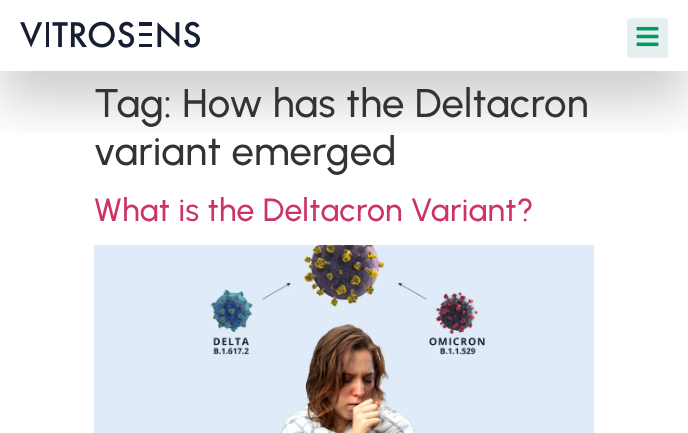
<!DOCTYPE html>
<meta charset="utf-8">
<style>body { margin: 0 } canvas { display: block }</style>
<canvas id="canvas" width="688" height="433"></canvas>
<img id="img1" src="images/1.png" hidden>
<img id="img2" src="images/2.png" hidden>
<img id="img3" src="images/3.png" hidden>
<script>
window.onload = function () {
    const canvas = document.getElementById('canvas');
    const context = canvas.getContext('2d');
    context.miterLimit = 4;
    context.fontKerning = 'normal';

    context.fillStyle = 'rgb(255, 255, 255)';
    context.fillRect(0, 0, 688, 433);
    context.save();
    context.beginPath();
    context.rect(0, 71, 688, 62);
    context.clip();
    context.fillStyle = 'rgba(0, 0, 0, 0.2)';
    context.filter = 'blur(25px)';
    context.beginPath();
    context.rect(0, 30, 688, 71);
    context.fill();
    context.filter = 'none';
    context.restore();
    context.drawImage(document.getElementById('img1'), 20, 21, 180, 27);
    context.fillStyle = 'rgb(229, 239, 240)';
    context.beginPath();
    context.roundRect(627, 18, 41, 40, 3);
    context.fill();
    context.drawImage(document.getElementById('img2'), 636, 26, 23, 21);
    context.drawImage(document.getElementById('img3'), 94, 245, 500, 188);
    context.letterSpacing = '0.4px';
    context.font = '500 40px Urbanist';
    context.fillStyle = 'rgb(51, 51, 51)';
    context.fillText('Tag: How has the Deltacron', 94, 117);
    context.fillText('variant emerged', 94, 165);
    context.font = '500 32px Urbanist';
    context.fillStyle = 'rgb(204, 51, 102)';
    context.fillText('What is the Deltacron Variant?', 94, 221);
};
</script>
